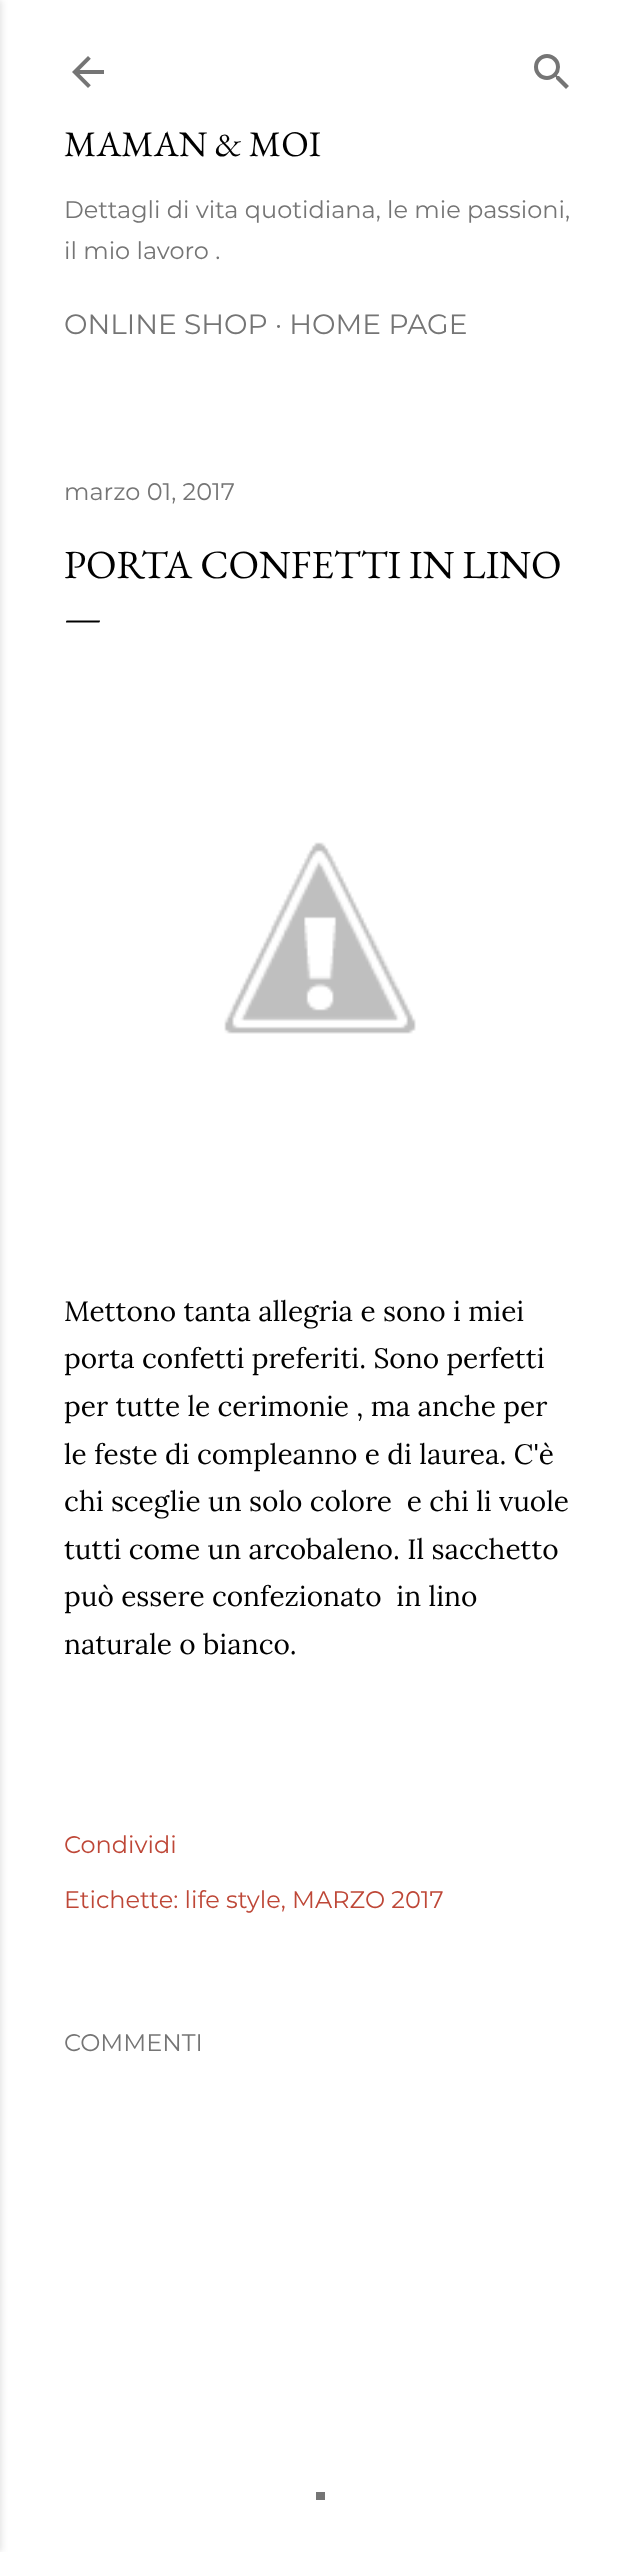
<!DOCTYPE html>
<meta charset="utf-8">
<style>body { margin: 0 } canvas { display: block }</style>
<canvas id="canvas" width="640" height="2552"></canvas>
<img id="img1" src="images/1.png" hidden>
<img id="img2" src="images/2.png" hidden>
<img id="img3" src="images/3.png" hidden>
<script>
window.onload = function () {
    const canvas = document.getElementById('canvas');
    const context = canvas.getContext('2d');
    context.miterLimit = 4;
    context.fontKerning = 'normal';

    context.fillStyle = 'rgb(255, 255, 255)';
    context.fillRect(0, 0, 640, 2552);
    context.fillStyle = 'rgba(0, 0, 0, 0.1)';
    context.filter = 'blur(3px)';
    context.beginPath();
    context.rect(-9, 0, 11, 2552);
    context.fill();
    context.filter = 'none';
    context.drawImage(document.getElementById('img1'), 72, 56, 32, 32);
    context.drawImage(document.getElementById('img2'), 534, 54, 35, 35);
    context.drawImage(document.getElementById('img3'), 224, 842, 192, 192);
    context.fillStyle = 'rgb(117, 117, 117)';
    context.fillRect(316, 2492, 9, 8);
    context.font = '36px EB Garamond';
    context.fillStyle = 'rgb(0, 0, 0)';
    context.fillText('MAMAN & MOI', 64, 156);
    context.font = '24px Montserrat';
    context.fillStyle = 'rgb(117, 117, 117)';
    context.fillText('Dettagli di vita quotidiana, le mie passioni,', 64, 218);
    context.fillText('il mio lavoro .', 64, 259);
    context.font = '28px Montserrat';
    context.fillText('ONLINE SHOP · HOME PAGE', 64, 334);
    context.font = '24px Montserrat';
    context.fillText('marzo 01, 2017', 64, 500);
    context.font = '40px EB Garamond';
    context.fillStyle = 'rgb(0, 0, 0)';
    context.fillText('PORTA CONFETTI IN LINO', 64, 578);
    context.fillText('—', 64, 630);
    context.font = '28px Lora';
    context.fillText('Mettono tanta allegria e sono i miei', 64, 1321);
    context.fillText('porta confetti preferiti. Sono perfetti', 64, 1368);
    context.fillText('per tutte le cerimonie , ma anche per', 64, 1416);
    context.fillText('le feste di compleanno e di laurea. C\'è', 64, 1464);
    context.fillText('chi sceglie un solo colore  e chi li vuole', 64, 1511);
    context.fillText('tutti come un arcobaleno. Il sacchetto', 64, 1559);
    context.fillText('può essere confezionato  in lino', 64, 1606);
    context.fillText('naturale o bianco.', 64, 1654);
    context.font = '24px Montserrat';
    context.fillStyle = 'rgb(190, 71, 55)';
    context.fillText('Condividi', 64, 1853);
    context.fillText('Etichette: life style, MARZO 2017', 64, 1908);
    context.fillStyle = 'rgb(117, 117, 117)';
    context.fillText('COMMENTI', 64, 2051);
};
</script>
